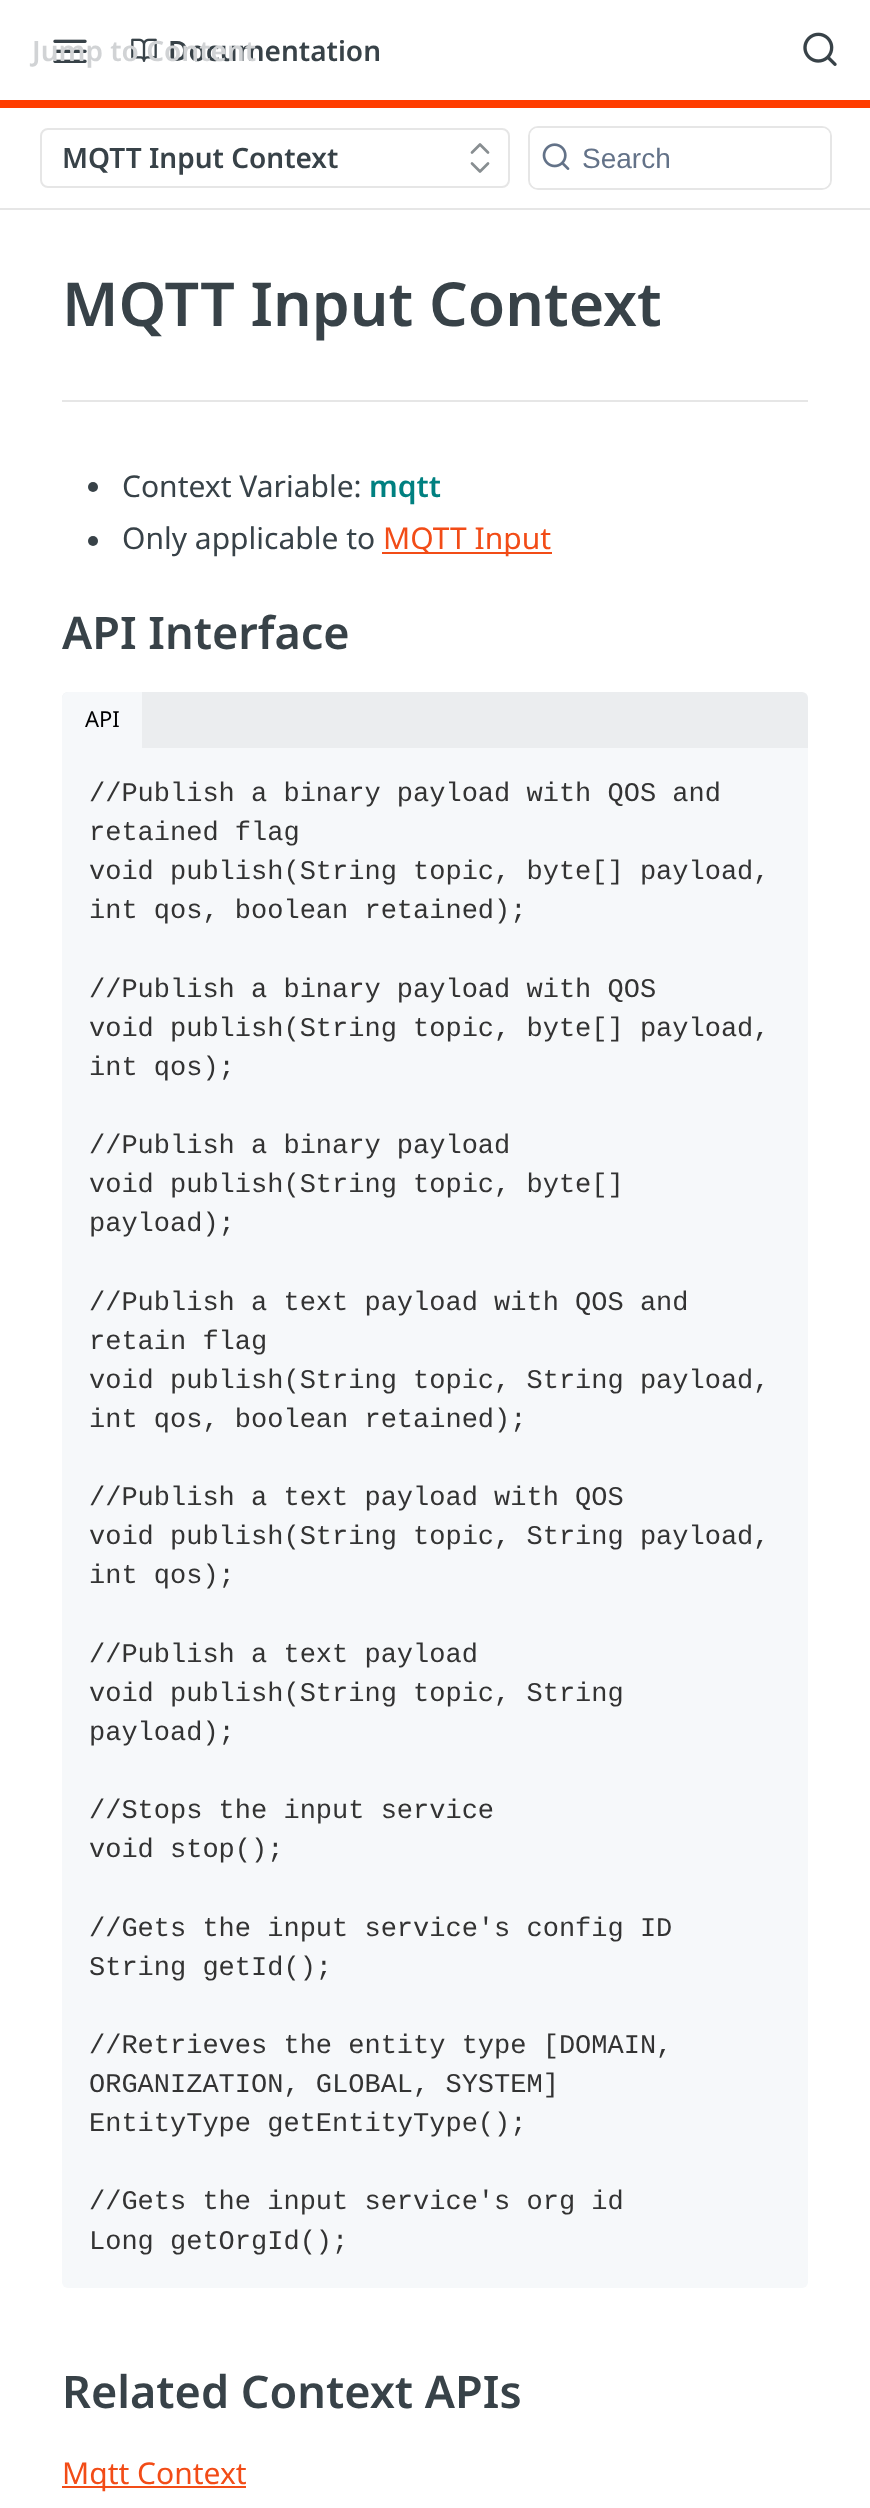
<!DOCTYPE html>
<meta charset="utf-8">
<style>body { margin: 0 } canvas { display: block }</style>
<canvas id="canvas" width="870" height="2508"></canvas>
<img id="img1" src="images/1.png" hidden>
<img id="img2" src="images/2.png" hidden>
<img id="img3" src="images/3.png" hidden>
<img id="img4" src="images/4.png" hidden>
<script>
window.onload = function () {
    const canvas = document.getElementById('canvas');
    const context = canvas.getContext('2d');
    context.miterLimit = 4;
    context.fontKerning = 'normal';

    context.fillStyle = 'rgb(255, 255, 255)';
    context.fillRect(0, 0, 870, 2508);
    context.fillStyle = 'rgb(230, 230, 230)';
    context.fillRect(0, 208, 870, 2);
    context.fillStyle = 'rgb(255, 61, 0)';
    context.fillRect(0, 100, 870, 8);
    context.drawImage(document.getElementById('img1'), 53, 39, 34, 24);
    context.drawImage(document.getElementById('img2'), 131, 38, 26, 24);
    context.drawImage(document.getElementById('img3'), 803, 32, 34, 34);
    context.beginPath();
    context.roundRect(41, 129, 468, 58, 7);
    context.strokeStyle = 'rgb(230, 230, 230)';
    context.lineWidth = 2;
    context.stroke();
    context.beginPath();
    context.moveTo(472, 163.5);
    context.lineTo(480, 171.5);
    context.lineTo(488, 163.5);
    context.moveTo(488, 152.5);
    context.lineTo(480, 144.5);
    context.lineTo(472, 152.5);
    context.strokeStyle = 'rgb(136, 142, 145)';
    context.lineWidth = 2.7;
    context.lineCap = 'round';
    context.lineJoin = 'round';
    context.stroke();
    context.beginPath();
    context.roundRect(529, 127, 302, 62, 9);
    context.strokeStyle = 'rgb(230, 230, 230)';
    context.lineWidth = 2;
    context.lineJoin = 'miter';
    context.stroke();
    context.fillStyle = 'rgb(255, 255, 255)';
    context.beginPath();
    context.roundRect(530, 128, 300, 60, 8);
    context.fill();
    context.drawImage(document.getElementById('img4'), 542, 143, 28, 27);
    context.fillStyle = 'rgb(230, 230, 230)';
    context.fillRect(62, 400, 746, 2);
    context.fillStyle = 'rgb(56, 66, 72)';
    context.beginPath();
    context.arc(93, 487, 5, 0, 2 * Math.PI);
    context.fill();
    context.beginPath();
    context.arc(93, 541, 5, 0, 2 * Math.PI);
    context.fill();
    context.fillStyle = 'rgb(242, 76, 23)';
    context.fillRect(382, 552, 170, 2);
    context.fillStyle = 'rgb(235, 237, 239)';
    context.beginPath();
    context.roundRect(62, 692, 746, 56, [6, 6, 0, 0]);
    context.fill();
    context.fillStyle = 'rgb(246, 248, 250)';
    context.beginPath();
    context.roundRect(62, 692, 80, 56, [6, 0, 0, 0]);
    context.fill();
    context.beginPath();
    context.roundRect(62, 748, 746, 1540, [0, 0, 6, 6]);
    context.fill();
    context.fillStyle = 'rgb(242, 76, 23)';
    context.fillRect(62, 2486, 184, 2);
    context.font = '600 28px Noto Sans';
    context.fillStyle = 'rgb(56, 66, 72)';
    context.fillText('Documentation', 168, 61);
    context.fillStyle = 'rgb(209, 211, 213)';
    context.fillText('Jump to Content', 32, 61);
    context.fillStyle = 'rgb(56, 66, 72)';
    context.fillText('MQTT Input Context', 62, 168);
    context.font = '28px Liberation Sans';
    context.fillStyle = 'rgb(99, 114, 136)';
    context.fillText('Search', 582, 168);
    context.font = '600 60.75px Noto Sans';
    context.fillStyle = 'rgb(56, 66, 72)';
    context.fillText('MQTT Input Context', 62, 326);
    context.font = '30px Noto Sans';
    context.fillText('Context Variable:', 122, 497);
    context.font = '600 30px Noto Sans';
    context.fillStyle = 'rgb(0, 128, 128)';
    context.fillText('mqtt', 369, 497);
    context.font = '30px Noto Sans';
    context.fillStyle = 'rgb(56, 66, 72)';
    context.fillText('Only applicable to', 122, 549);
    context.fillStyle = 'rgb(242, 76, 23)';
    context.fillText('MQTT Input', 383, 549);
    context.font = '600 45px Noto Sans';
    context.fillStyle = 'rgb(56, 66, 72)';
    context.fillText('API Interface', 62, 649);
    context.font = '22px Noto Sans';
    context.fillStyle = 'rgb(0, 0, 0)';
    context.fillText('API', 85, 727);
    context.font = '27px Liberation Mono';
    context.fillStyle = 'rgb(51, 51, 51)';
    context.fillText('//Publish a binary payload with QOS and', 89, 801);
    context.fillText('retained flag', 89, 840);
    context.fillText('void publish(String topic, byte[] payload,', 89, 879);
    context.fillText('int qos, boolean retained);', 89, 918);
    context.fillText('//Publish a binary payload with QOS', 89, 997);
    context.fillText('void publish(String topic, byte[] payload,', 89, 1036);
    context.fillText('int qos);', 89, 1075);
    context.fillText('//Publish a binary payload', 89, 1153);
    context.fillText('void publish(String topic, byte[]', 89, 1192);
    context.fillText('payload);', 89, 1231);
    context.fillText('//Publish a text payload with QOS and', 89, 1310);
    context.fillText('retain flag', 89, 1349);
    context.fillText('void publish(String topic, String payload,', 89, 1388);
    context.fillText('int qos, boolean retained);', 89, 1427);
    context.fillText('//Publish a text payload with QOS', 89, 1505);
    context.fillText('void publish(String topic, String payload,', 89, 1544);
    context.fillText('int qos);', 89, 1583);
    context.fillText('//Publish a text payload', 89, 1662);
    context.fillText('void publish(String topic, String', 89, 1701);
    context.fillText('payload);', 89, 1740);
    context.fillText('//Stops the input service', 89, 1818);
    context.fillText('void stop();', 89, 1857);
    context.fillText('//Gets the input service\'s config ID', 89, 1936);
    context.fillText('String getId();', 89, 1975);
    context.fillText('//Retrieves the entity type [DOMAIN,', 89, 2053);
    context.fillText('ORGANIZATION, GLOBAL, SYSTEM]', 89, 2092);
    context.fillText('EntityType getEntityType();', 89, 2131);
    context.fillText('//Gets the input service\'s org id', 89, 2209);
    context.fillText('Long getOrgId();', 89, 2249);
    context.font = '600 45px Noto Sans';
    context.fillStyle = 'rgb(56, 66, 72)';
    context.fillText('Related Context APIs', 62, 2408);
    context.font = '30px Noto Sans';
    context.fillStyle = 'rgb(242, 76, 23)';
    context.fillText('Mqtt Context', 62, 2484);
};
</script>
